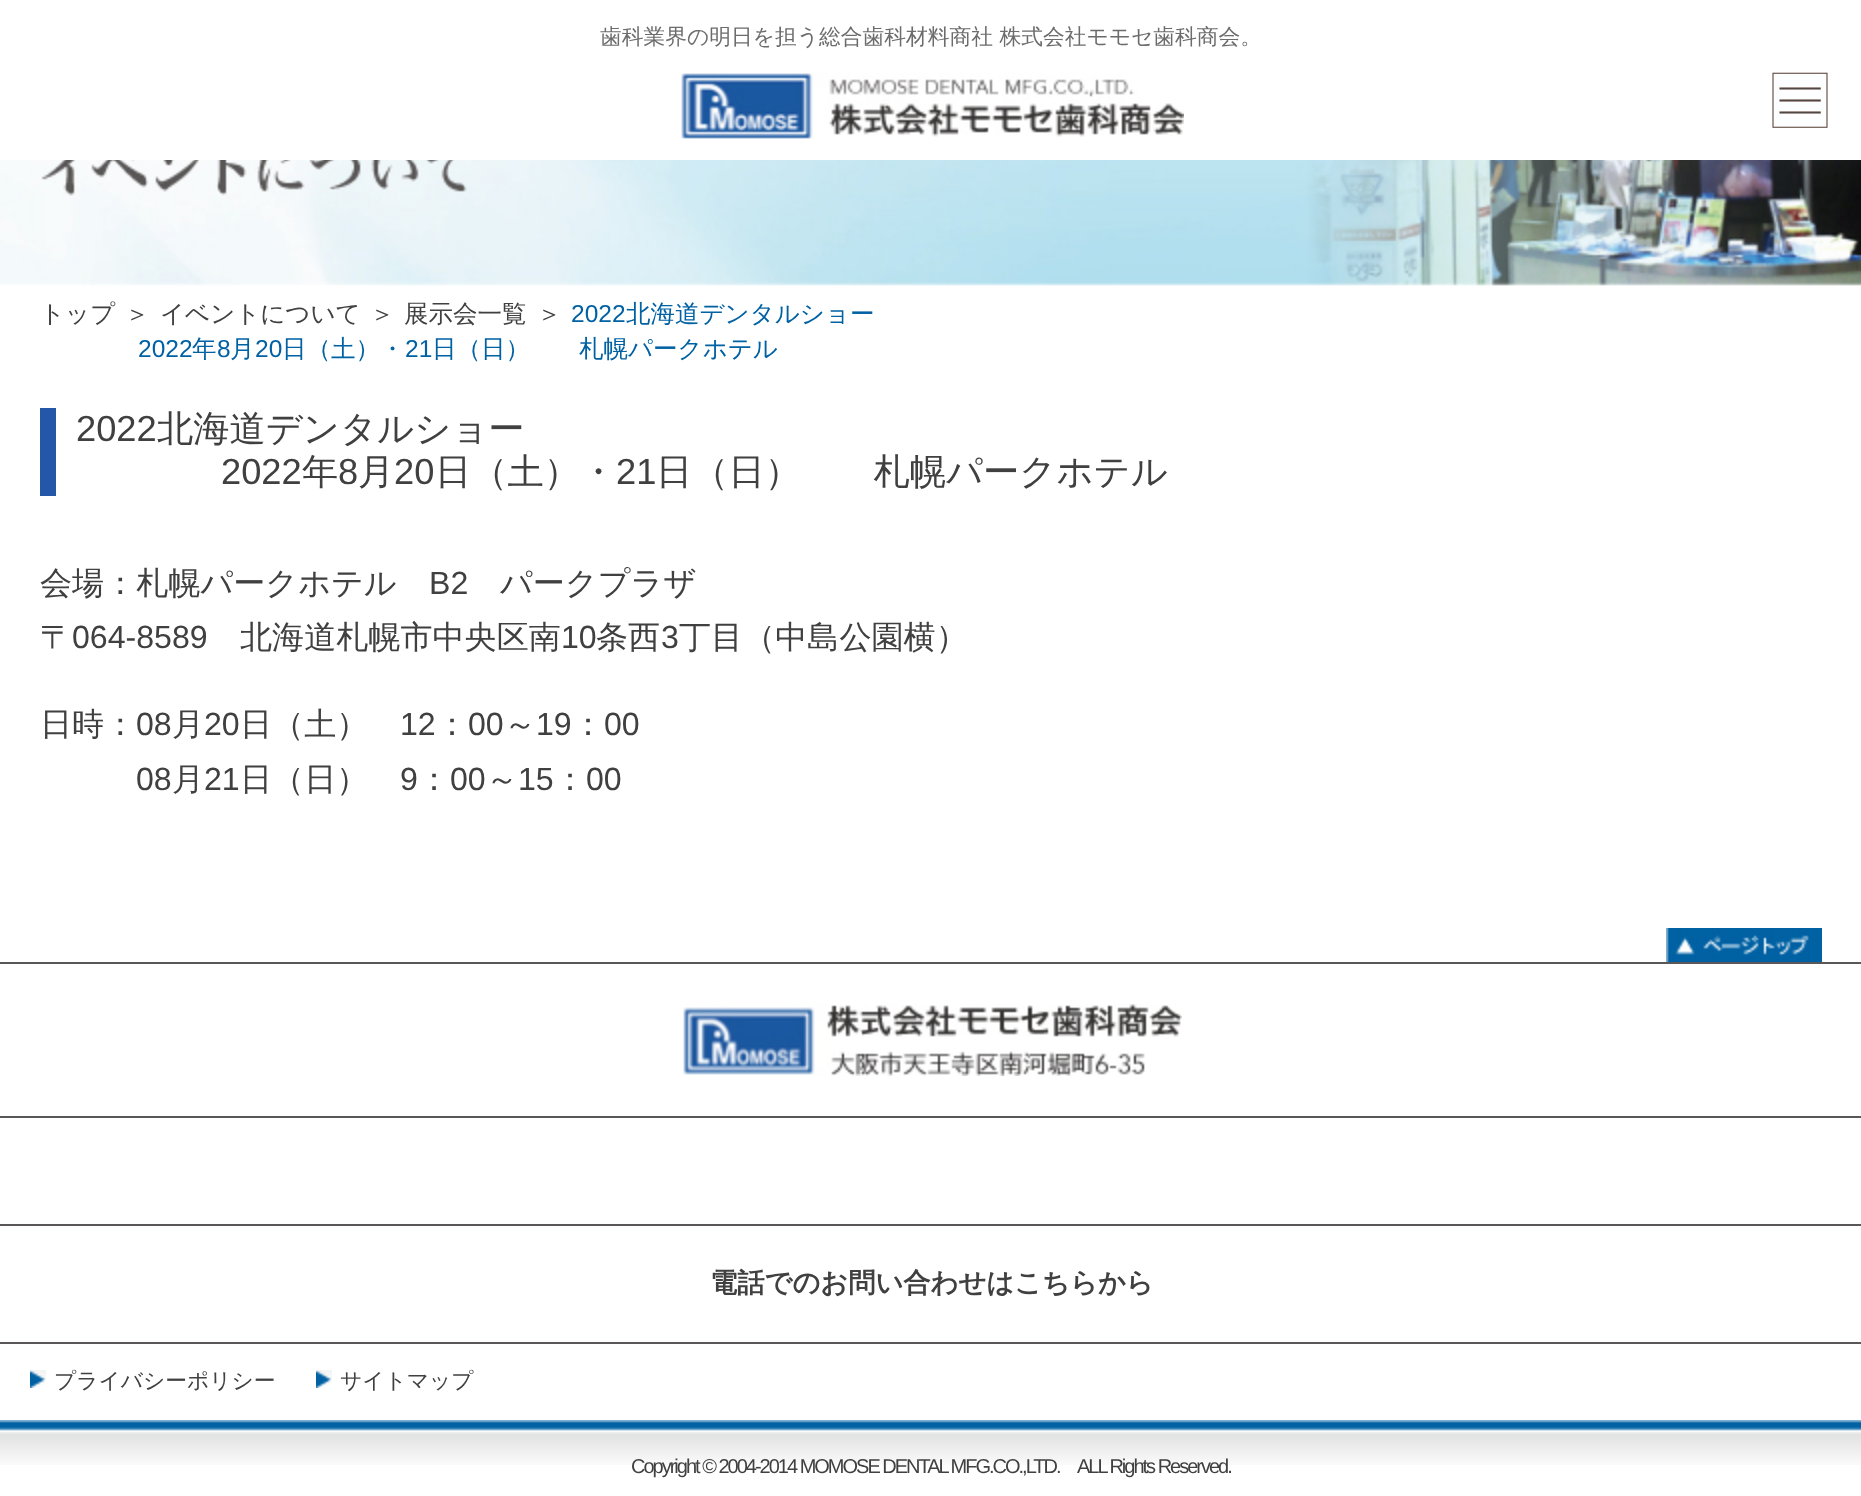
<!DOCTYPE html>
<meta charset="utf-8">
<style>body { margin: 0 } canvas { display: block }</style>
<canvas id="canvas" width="1861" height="1496"></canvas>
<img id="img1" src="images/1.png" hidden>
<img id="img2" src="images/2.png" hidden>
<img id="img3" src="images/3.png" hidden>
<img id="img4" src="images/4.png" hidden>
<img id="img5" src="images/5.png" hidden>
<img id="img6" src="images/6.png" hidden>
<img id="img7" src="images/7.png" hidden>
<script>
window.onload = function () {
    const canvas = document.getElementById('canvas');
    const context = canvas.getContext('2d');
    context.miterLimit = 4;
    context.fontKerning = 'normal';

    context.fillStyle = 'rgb(255, 255, 255)';
    context.fillRect(0, 0, 1861, 1496);
    context.drawImage(document.getElementById('img1'), 681, 73, 503, 66);
    context.drawImage(document.getElementById('img2'), 1772, 72, 56, 56);
    context.drawImage(document.getElementById('img3'), 0, 160, 1861, 126);
    context.fillStyle = 'rgb(37, 87, 169)';
    context.fillRect(40, 408, 16, 88);
    context.drawImage(document.getElementById('img4'), 1666, 928, 156, 34);
    context.fillStyle = 'rgb(89, 87, 87)';
    context.fillRect(0, 962, 1861, 2);
    context.drawImage(document.getElementById('img5'), 683, 1004, 499, 72);
    context.fillRect(0, 1116, 1861, 2);
    context.fillRect(0, 1224, 1861, 2);
    context.fillRect(0, 1342, 1861, 2);
    context.drawImage(document.getElementById('img6'), 30, 1370, 16, 18);
    context.drawImage(document.getElementById('img6'), 316, 1370, 16, 18);
    context.drawImage(document.getElementById('img7'), 0, 1420, 1861, 45);
    context.font = '500 21.75px WenQuanYi Zen Hei';
    context.fillStyle = 'rgb(109, 108, 108)';
    context.fillText('歯科業界の明日を担う総合歯科材料商社 株式会社モモセ歯科商会。', 600, 44);
    context.font = '500 24.5px WenQuanYi Zen Hei';
    context.fillStyle = 'rgb(64, 64, 64)';
    context.fillText('トップ', 40, 322);
    context.fillText('＞', 125, 322);
    context.fillText('イベントについて', 160, 322);
    context.fillText('＞', 370, 322);
    context.fillText('展示会一覧', 404, 322);
    context.fillText('＞', 537, 322);
    context.font = '24.5px Liberation Sans';
    context.fillStyle = 'rgb(0, 97, 163)';
    context.fillText('2022', 571, 322);
    context.font = '500 24.5px WenQuanYi Zen Hei';
    context.fillText('北海道デンタルショー', 626, 322);
    context.font = '24.5px Liberation Sans';
    context.fillText('2022', 138, 357);
    context.font = '500 24.5px WenQuanYi Zen Hei';
    context.fillText('年', 192, 357);
    context.font = '24.5px Liberation Sans';
    context.fillText('8', 217, 357);
    context.font = '500 24.5px WenQuanYi Zen Hei';
    context.fillText('月', 230, 357);
    context.font = '24.5px Liberation Sans';
    context.fillText('20', 255, 357);
    context.font = '500 24.5px WenQuanYi Zen Hei';
    context.fillText('日（土）・', 282, 357);
    context.font = '24.5px Liberation Sans';
    context.fillText('21', 405, 357);
    context.font = '500 24.5px WenQuanYi Zen Hei';
    context.fillText('日（日）　　札幌パークホテル', 432, 357);
    context.font = '36.25px Liberation Sans';
    context.fillStyle = 'rgb(64, 64, 64)';
    context.fillText('2022', 76, 441);
    context.font = '500 36.25px WenQuanYi Zen Hei';
    context.fillText('北海道デンタルショー', 157, 441);
    context.font = '36.25px Liberation Sans';
    context.fillText('2022', 221, 484);
    context.font = '500 36.25px WenQuanYi Zen Hei';
    context.fillText('年', 302, 484);
    context.font = '36.25px Liberation Sans';
    context.fillText('8', 338, 484);
    context.font = '500 36.25px WenQuanYi Zen Hei';
    context.fillText('月', 358, 484);
    context.font = '36.25px Liberation Sans';
    context.fillText('20', 394, 484);
    context.font = '500 36.25px WenQuanYi Zen Hei';
    context.fillText('日（土）・', 435, 484);
    context.font = '36.25px Liberation Sans';
    context.fillText('21', 616, 484);
    context.font = '500 36.25px WenQuanYi Zen Hei';
    context.fillText('日（日）　　札幌パークホテル', 656, 484);
    context.font = '500 32.1px WenQuanYi Zen Hei';
    context.fillText('会場：札幌パークホテル', 40, 594);
    context.font = '32.1px Liberation Sans';
    context.fillText('B2', 429, 594);
    context.font = '500 32.1px WenQuanYi Zen Hei';
    context.fillText('パークプラザ', 500, 594);
    context.fillText('〒', 40, 648);
    context.font = '32.1px Liberation Sans';
    context.fillText('064-8589', 72, 648);
    context.font = '500 32.1px WenQuanYi Zen Hei';
    context.fillText('北海道札幌市中央区南', 240, 648);
    context.font = '32.1px Liberation Sans';
    context.fillText('10', 561, 648);
    context.font = '500 32.1px WenQuanYi Zen Hei';
    context.fillText('条西', 596, 648);
    context.font = '32.1px Liberation Sans';
    context.fillText('3', 661, 648);
    context.font = '500 32.1px WenQuanYi Zen Hei';
    context.fillText('丁目（中島公園横）', 679, 648);
    context.fillText('日時：', 40, 735);
    context.font = '32.1px Liberation Sans';
    context.fillText('08', 136, 735);
    context.font = '500 32.1px WenQuanYi Zen Hei';
    context.fillText('月', 172, 735);
    context.font = '32.1px Liberation Sans';
    context.fillText('20', 204, 735);
    context.font = '500 32.1px WenQuanYi Zen Hei';
    context.fillText('日（土）', 240, 735);
    context.font = '32.1px Liberation Sans';
    context.fillText('12', 400, 735);
    context.font = '500 32.1px WenQuanYi Zen Hei';
    context.fillText('：', 436, 735);
    context.font = '32.1px Liberation Sans';
    context.fillText('00', 468, 735);
    context.font = '500 32.1px WenQuanYi Zen Hei';
    context.fillText('～', 504, 735);
    context.font = '32.1px Liberation Sans';
    context.fillText('19', 536, 735);
    context.font = '500 32.1px WenQuanYi Zen Hei';
    context.fillText('：', 572, 735);
    context.font = '32.1px Liberation Sans';
    context.fillText('00', 604, 735);
    context.fillText('08', 136, 790);
    context.font = '500 32.1px WenQuanYi Zen Hei';
    context.fillText('月', 172, 790);
    context.font = '32.1px Liberation Sans';
    context.fillText('21', 204, 790);
    context.font = '500 32.1px WenQuanYi Zen Hei';
    context.fillText('日（日）', 240, 790);
    context.font = '32.1px Liberation Sans';
    context.fillText('9', 400, 790);
    context.font = '500 32.1px WenQuanYi Zen Hei';
    context.fillText('：', 418, 790);
    context.font = '32.1px Liberation Sans';
    context.fillText('00', 450, 790);
    context.font = '500 32.1px WenQuanYi Zen Hei';
    context.fillText('～', 486, 790);
    context.font = '32.1px Liberation Sans';
    context.fillText('15', 518, 790);
    context.font = '500 32.1px WenQuanYi Zen Hei';
    context.fillText('：', 554, 790);
    context.font = '32.1px Liberation Sans';
    context.fillText('00', 586, 790);
    context.font = 'bold 27.25px WenQuanYi Zen Hei';
    context.fillText('電話でのお問い合わせはこちらから', 710, 1292);
    context.font = '500 21.75px WenQuanYi Zen Hei';
    context.fillText('プライバシーポリシー', 54, 1388);
    context.fillText('サイトマップ', 340, 1388);
    context.letterSpacing = '-2px';
    context.font = '20px Liberation Sans';
    context.fillText('Copyright © 2004-2014 MOMOSE DENTAL MFG.CO.,LTD.', 631, 1473);
    context.fillText('ALL Rights Reserved.', 1077, 1473);
};
</script>
